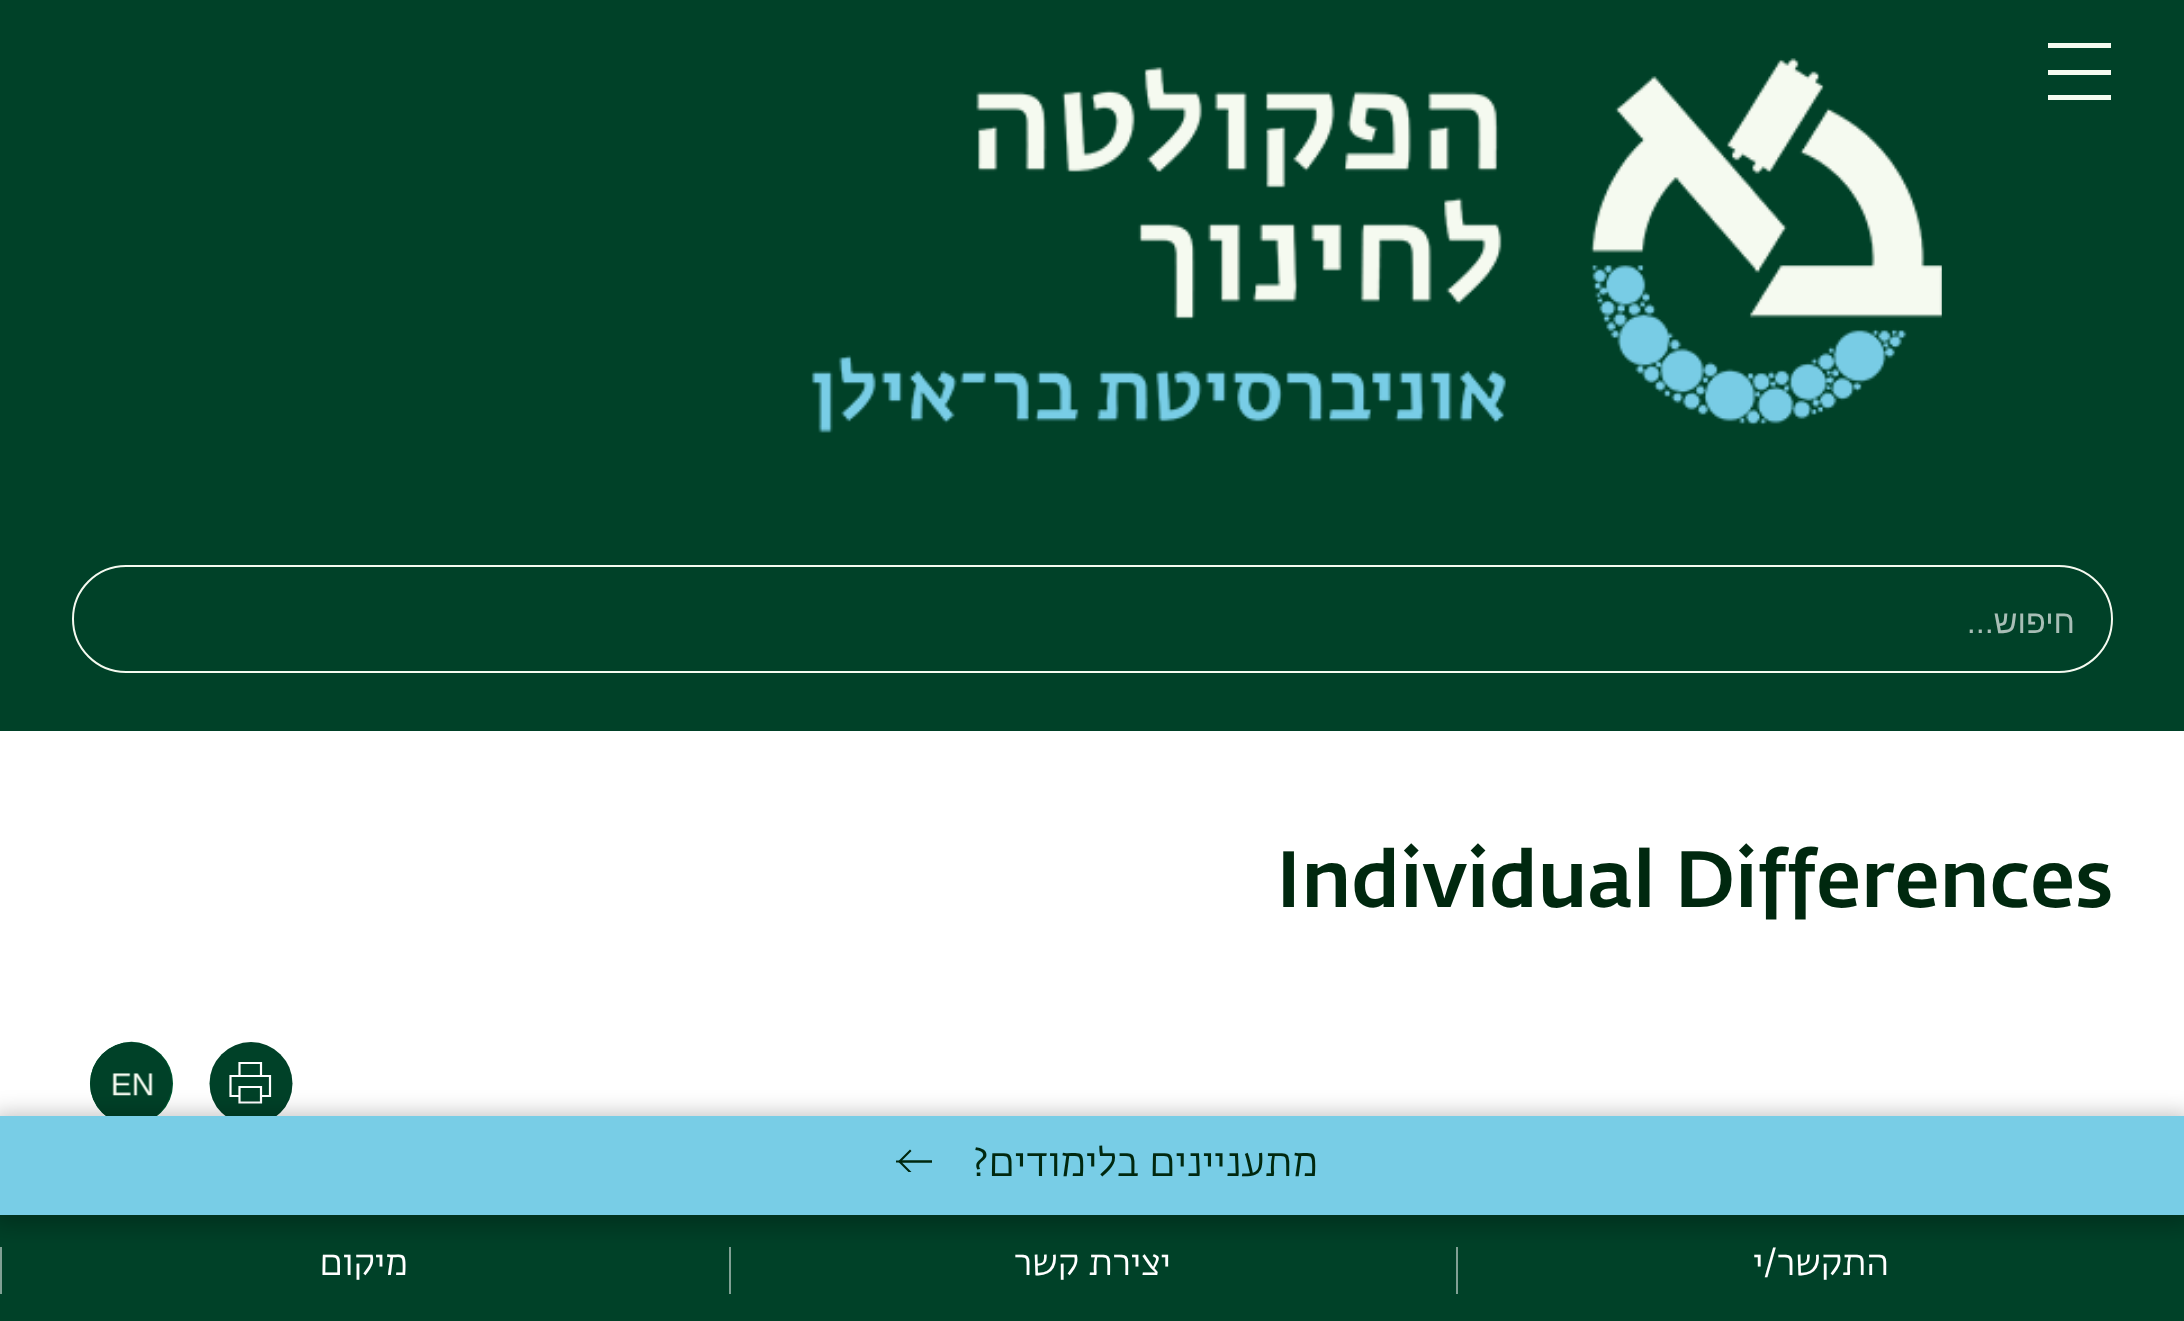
<!DOCTYPE html>
<meta charset="utf-8">
<style>body { margin: 0 } canvas { display: block }</style>
<canvas id="canvas" width="2184" height="1321"></canvas>
<img id="img1" src="images/1.png" hidden>
<img id="img2" src="images/2.png" hidden>
<script>
window.onload = function () {
    const canvas = document.getElementById('canvas');
    const context = canvas.getContext('2d');
    context.miterLimit = 4;
    context.fontKerning = 'normal';

    context.fillStyle = 'rgb(255, 255, 255)';
    context.fillRect(0, 0, 2184, 1321);
    context.fillStyle = 'rgb(0, 65, 40)';
    context.fillRect(0, 0, 2184, 731);
    context.fillStyle = 'rgb(245, 250, 240)';
    context.fillRect(2048, 43, 63, 5);
    context.fillRect(2048, 70, 63, 5);
    context.fillRect(2048, 95, 63, 5);
    context.drawImage(document.getElementById('img1'), 811, 58, 1131, 375);
    context.beginPath();
    context.roundRect(73, 566, 2039, 106, 53);
    context.strokeStyle = 'rgb(245, 250, 240)';
    context.lineWidth = 2;
    context.stroke();
    context.fillStyle = 'rgb(0, 65, 40)';
    context.beginPath();
    context.arc(251, 1083.5, 41.5, 0, 2 * Math.PI);
    context.fill();
    context.beginPath();
    context.moveTo(261, 1087);
    context.lineTo(261, 1102.5);
    context.lineTo(239.5, 1102.5);
    context.lineTo(239.5, 1087);
    context.closePath();
    context.moveTo(261, 1063);
    context.lineTo(261, 1076);
    context.lineTo(239.5, 1076);
    context.lineTo(239.5, 1063);
    context.closePath();
    context.moveTo(239.5, 1096);
    context.lineTo(230.5, 1096);
    context.lineTo(230.5, 1076);
    context.lineTo(270, 1076);
    context.lineTo(270, 1096);
    context.lineTo(261, 1096);
    context.strokeStyle = 'rgb(255, 255, 255)';
    context.lineWidth = 2.2;
    context.lineCap = 'square';
    context.stroke();
    context.fillStyle = 'rgb(0, 105, 55)';
    context.beginPath();
    context.arc(131.5, 1083.5, 41.5, 0, 2 * Math.PI);
    context.fill();
    context.drawImage(document.getElementById('img2'), 90, 1041, 83, 75);
    context.fillStyle = 'rgb(0, 65, 40)';
    context.fillRect(0, 1215, 2184, 106);
    context.fillStyle = 'rgb(128, 160, 148)';
    context.fillRect(1456, 1247, 2, 47);
    context.fillRect(729, 1247, 2, 47);
    context.fillRect(0, 1247, 2, 47);
    context.fillStyle = 'rgba(0, 0, 0, 0.25)';
    context.filter = 'blur(11px)';
    context.beginPath();
    context.rect(-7, 1114, 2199, 112);
    context.fill();
    context.filter = 'none';
    context.fillStyle = 'rgb(120, 205, 230)';
    context.fillRect(0, 1116, 2184, 99);
    context.save();
    context.beginPath();
    context.rect(896, 1148, 36, 24);
    context.clip();
    context.beginPath();
    context.moveTo(934.5, 1161.5);
    context.lineTo(890.5, 1161.5);
    context.strokeStyle = 'rgb(0, 40, 15)';
    context.lineCap = 'butt';
    context.stroke();
    context.fillStyle = 'rgb(0, 40, 15)';
    context.beginPath();
    context.moveTo(910, 1173.5);
    context.lineTo(911.5, 1172);
    context.lineTo(902, 1162.5);
    context.lineTo(932, 1162.5);
    context.lineTo(932, 1160.5);
    context.lineTo(902, 1160.5);
    context.lineTo(911.5, 1151);
    context.lineTo(910, 1149.5);
    context.lineTo(898, 1161.5);
    context.closePath();
    context.fill();
    context.restore();
    context.direction = 'rtl';
    context.font = '32.5px Liberation Sans';
    context.fillStyle = 'rgb(168, 190, 182)';
    context.fillText('חיפוש...', 2075, 633);
    context.direction = 'ltr';
    context.font = '500 78.75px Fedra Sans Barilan';
    context.fillStyle = 'rgb(0, 40, 15)';
    context.fillText('Individual Differences', 1276, 907);
    context.direction = 'rtl';
    context.font = '40.5px Fedra Sans Barilan';
    context.fillText('מתעניינים בלימודים?', 1318, 1176);
    context.font = '36px Fedra Sans Barilan';
    context.fillStyle = 'rgb(255, 255, 255)';
    context.fillText('התקשר/י', 1889, 1275);
    context.fillText('יצירת קשר', 1171, 1275);
    context.fillText('מיקום', 408, 1275);
};
</script>
